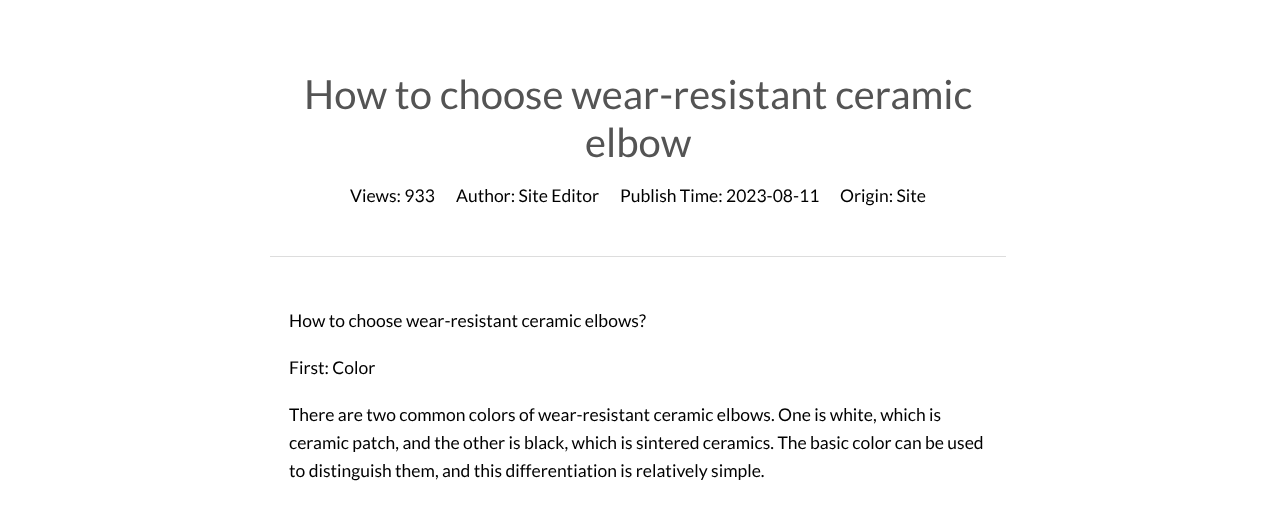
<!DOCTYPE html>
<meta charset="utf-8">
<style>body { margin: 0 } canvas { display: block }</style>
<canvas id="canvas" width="1279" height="510"></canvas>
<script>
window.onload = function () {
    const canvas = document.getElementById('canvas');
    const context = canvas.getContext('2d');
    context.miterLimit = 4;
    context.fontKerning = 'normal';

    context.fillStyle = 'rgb(255, 255, 255)';
    context.fillRect(0, 0, 1279, 510);
    context.fillStyle = 'rgb(221, 221, 221)';
    context.fillRect(270, 256, 736, 1);
    context.font = '40px Lato';
    context.fillStyle = 'rgb(84, 84, 84)';
    context.fillText('How to choose wear-resistant ceramic', 304, 109);
    context.fillText('elbow', 585, 157);
    context.font = '17.5px Lato';
    context.fillStyle = 'rgb(0, 0, 0)';
    context.fillText('Views: 933', 350, 202);
    context.fillText('Author: Site Editor', 456, 202);
    context.fillText('Publish Time: 2023-08-11', 620, 202);
    context.fillText('Origin: Site', 840, 202);
    context.fillText('How to choose wear-resistant ceramic elbows?', 289, 327);
    context.fillText('First: Color', 289, 374);
    context.fillText('There are two common colors of wear-resistant ceramic elbows. One is white, which is', 289, 421);
    context.fillText('ceramic patch, and the other is black, which is sintered ceramics. The basic color can be used', 289, 449);
    context.fillText('to distinguish them, and this differentiation is relatively simple.', 289, 477);
};
</script>
